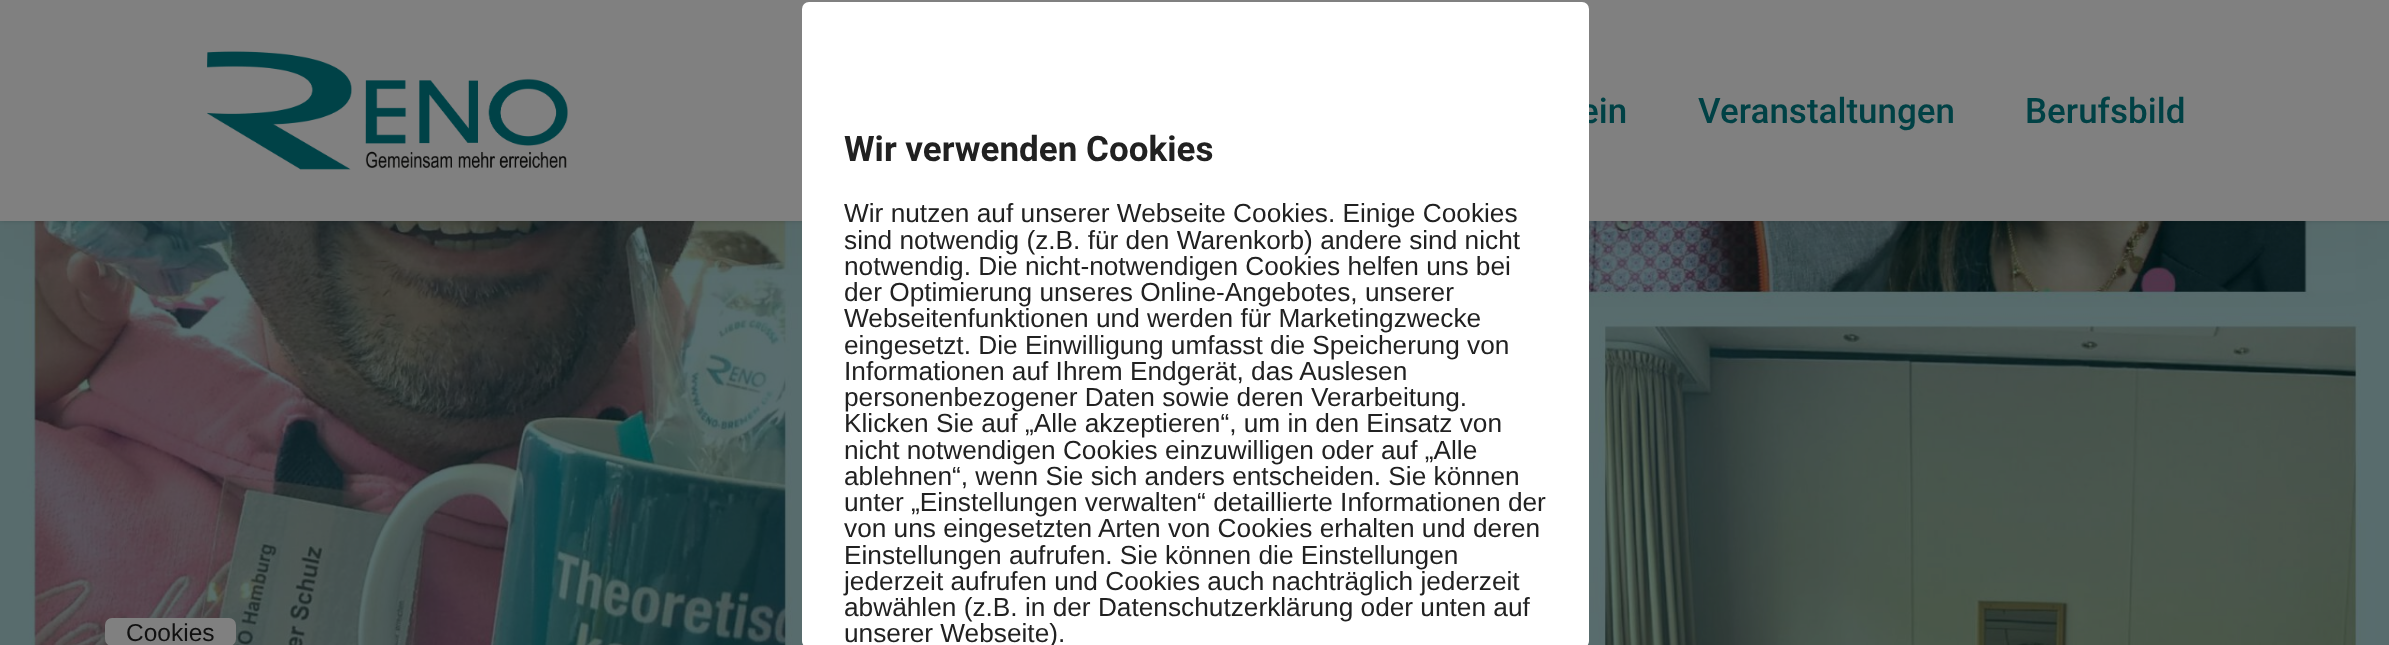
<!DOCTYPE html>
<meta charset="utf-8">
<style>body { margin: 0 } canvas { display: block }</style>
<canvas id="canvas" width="2389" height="645"></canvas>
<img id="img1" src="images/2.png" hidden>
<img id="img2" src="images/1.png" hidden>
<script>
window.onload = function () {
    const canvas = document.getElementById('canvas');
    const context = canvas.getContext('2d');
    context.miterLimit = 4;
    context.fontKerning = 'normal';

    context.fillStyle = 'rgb(255, 255, 255)';
    context.fillRect(0, 0, 2389, 645);
    context.drawImage(document.getElementById('img1'), 0, 221, 2389, 424);
    context.fillStyle = 'rgba(0, 0, 0, 0.04)';
    context.filter = 'blur(35px)';
    context.beginPath();
    context.rect(0, 32, 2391, 220);
    context.fill();
    context.filter = 'none';
    context.fillStyle = 'rgba(0, 0, 0, 0.14)';
    context.filter = 'blur(2px)';
    context.beginPath();
    context.rect(0, 0, 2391, 221);
    context.fill();
    context.filter = 'none';
    context.fillStyle = 'rgb(128, 128, 128)';
    context.fillRect(0, 0, 2389, 221);
    context.drawImage(document.getElementById('img2'), 207, 51, 361, 119);
    context.beginPath();
    context.roundRect(105, 618, 131, 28, 7);
    context.fill();
    context.font = '500 35px Roboto';
    context.fillStyle = 'rgb(0, 65, 69)';
    context.fillText('ein', 1580, 123);
    context.fillText('Veranstaltungen', 1698, 123);
    context.fillText('Berufsbild', 2025, 123);
    context.fillStyle = 'rgb(255, 255, 255)';
    context.beginPath();
    context.roundRect(802, 2, 787, 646, 7);
    context.fill();
    context.font = 'bold 35px Roboto';
    context.fillStyle = 'rgb(33, 33, 33)';
    context.fillText('Wir verwenden Cookies', 844, 161);
    context.font = '26.25px Liberation Sans';
    context.fillText('Wir nutzen auf unserer Webseite Cookies. Einige Cookies', 844, 222);
    context.fillText('sind notwendig (z.B. für den Warenkorb) andere sind nicht', 844, 249);
    context.fillText('notwendig. Die nicht-notwendigen Cookies helfen uns bei', 844, 275);
    context.fillText('der Optimierung unseres Online-Angebotes, unserer', 844, 301);
    context.fillText('Webseitenfunktionen und werden für Marketingzwecke', 844, 327);
    context.fillText('eingesetzt. Die Einwilligung umfasst die Speicherung von', 844, 354);
    context.fillText('Informationen auf Ihrem Endgerät, das Auslesen', 844, 380);
    context.fillText('personenbezogener Daten sowie deren Verarbeitung.', 844, 406);
    context.fillText('Klicken Sie auf „Alle akzeptieren“, um in den Einsatz von', 844, 432);
    context.fillText('nicht notwendigen Cookies einzuwilligen oder auf „Alle', 844, 459);
    context.fillText('ablehnen“, wenn Sie sich anders entscheiden. Sie können', 844, 485);
    context.fillText('unter „Einstellungen verwalten“ detaillierte Informationen der', 844, 511);
    context.fillText('von uns eingesetzten Arten von Cookies erhalten und deren', 844, 537);
    context.fillText('Einstellungen aufrufen. Sie können die Einstellungen', 844, 564);
    context.fillText('jederzeit aufrufen und Cookies auch nachträglich jederzeit', 844, 590);
    context.fillText('abwählen (z.B. in der Datenschutzerklärung oder unten auf', 844, 616);
    context.fillText('unserer Webseite).', 844, 642);
    context.font = '24.5px Liberation Sans';
    context.fillStyle = 'rgb(17, 17, 17)';
    context.fillText('Cookies', 126, 641);
};
</script>
